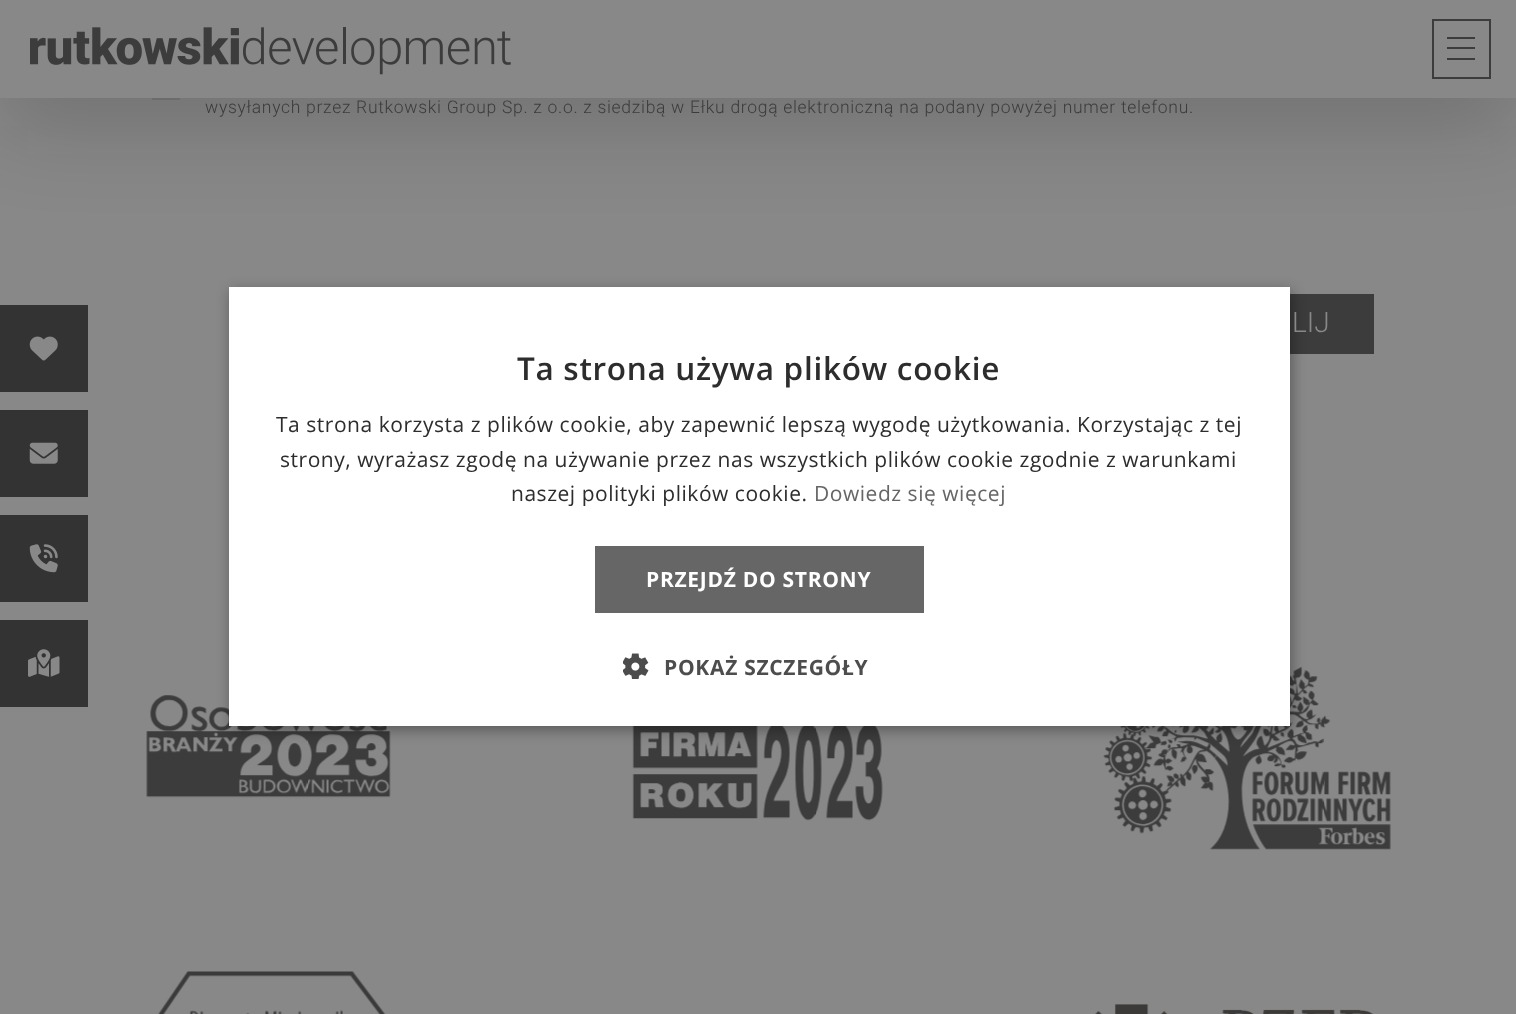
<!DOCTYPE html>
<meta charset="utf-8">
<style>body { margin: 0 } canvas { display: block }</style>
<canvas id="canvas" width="1516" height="1014"></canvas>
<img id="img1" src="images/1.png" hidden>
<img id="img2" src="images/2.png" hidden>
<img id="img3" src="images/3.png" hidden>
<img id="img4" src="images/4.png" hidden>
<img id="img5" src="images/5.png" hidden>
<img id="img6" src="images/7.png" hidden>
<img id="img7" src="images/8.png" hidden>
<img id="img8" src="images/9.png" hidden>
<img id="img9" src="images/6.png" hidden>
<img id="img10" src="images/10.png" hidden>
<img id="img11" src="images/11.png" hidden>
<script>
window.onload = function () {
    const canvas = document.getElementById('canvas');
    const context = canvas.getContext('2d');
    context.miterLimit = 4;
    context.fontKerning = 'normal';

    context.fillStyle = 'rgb(136, 136, 136)';
    context.fillRect(0, 0, 1516, 1014);
    context.fillStyle = 'rgb(123, 123, 123)';
    context.fillRect(152, 98, 28, 2);
    context.fillStyle = 'rgba(9, 9, 9, 0.18)';
    context.filter = 'blur(42px)';
    context.beginPath();
    context.rect(0, 28, 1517, 98);
    context.fill();
    context.filter = 'none';
    context.fillStyle = 'rgb(136, 136, 136)';
    context.fillRect(0, 0, 1516, 98);
    context.drawImage(document.getElementById('img1'), 30, 27, 481, 48);
    context.fillStyle = 'rgb(60, 60, 60)';
    context.fillRect(1447, 37, 28, 2);
    context.fillRect(1447, 47, 28, 2);
    context.fillRect(1447, 58, 28, 2);
    context.strokeStyle = 'rgb(60, 60, 60)';
    context.lineWidth = 2;
    context.strokeRect(1433, 20, 57, 58);
    context.fillRect(1290, 294, 84, 60);
    context.fillStyle = 'rgb(51, 51, 51)';
    context.fillRect(0, 305, 88, 87);
    context.drawImage(document.getElementById('img2'), 29, 336, 29, 25);
    context.fillRect(0, 410, 88, 87);
    context.drawImage(document.getElementById('img3'), 29, 442, 29, 22);
    context.fillRect(0, 515, 88, 87);
    context.drawImage(document.getElementById('img4'), 29, 544, 29, 29);
    context.fillRect(0, 620, 88, 87);
    context.drawImage(document.getElementById('img5'), 28, 649, 32, 28);
    context.drawImage(document.getElementById('img6'), 146, 695, 245, 103);
    context.drawImage(document.getElementById('img7'), 632, 726, 251, 95);
    context.drawImage(document.getElementById('img8'), 1103, 667, 288, 183);
    context.fillStyle = 'rgba(0, 0, 0, 0.35)';
    context.filter = 'blur(7px)';
    context.beginPath();
    context.rect(231, 291, 1061, 439);
    context.fill();
    context.filter = 'none';
    context.fillStyle = 'rgb(255, 255, 255)';
    context.fillRect(229, 287, 1061, 439);
    context.fillStyle = 'rgb(102, 102, 102)';
    context.fillRect(595, 546, 329, 67);
    context.drawImage(document.getElementById('img9'), 623, 653, 26, 26);
    context.drawImage(document.getElementById('img10'), 158, 971, 228, 43);
    context.drawImage(document.getElementById('img11'), 1095, 1004, 279, 10);
    context.letterSpacing = '0.7px';
    context.font = '300 17.5px Roboto';
    context.fillStyle = 'rgb(60, 60, 60)';
    context.fillText('wysyłanych przez Rutkowski Group Sp. z o.o. z siedzibą w Ełku drogą elektroniczną na podany powyżej numer telefonu.', 205, 113);
    context.letterSpacing = '0px';
    context.font = '300 28px Roboto';
    context.fillStyle = 'rgb(136, 136, 136)';
    context.fillText('LIJ', 1292, 332);
    context.letterSpacing = '0.7px';
    context.font = '600 31.5px Open Sans';
    context.fillStyle = 'rgb(45, 45, 45)';
    context.fillText('Ta strona używa plików cookie', 517, 380);
    context.letterSpacing = '0.53px';
    context.font = '21px Open Sans';
    context.fillText('Ta strona korzysta z plików cookie, aby zapewnić lepszą wygodę użytkowania. Korzystając z tej', 276, 432);
    context.fillText('strony, wyrażasz zgodę na używanie przez nas wszystkich plików cookie zgodnie z warunkami', 280, 467);
    context.fillText('naszej polityki plików cookie.', 511, 501);
    context.fillStyle = 'rgb(102, 102, 102)';
    context.fillText('Dowiedz się więcej', 814, 501);
    context.letterSpacing = '0.7px';
    context.font = 'bold 21px Open Sans';
    context.fillStyle = 'rgb(255, 255, 255)';
    context.fillText('PRZEJDŹ DO STRONY', 646, 587);
    context.fillStyle = 'rgb(77, 77, 77)';
    context.fillText('POKAŻ SZCZEGÓŁY', 664, 675);
};
</script>
